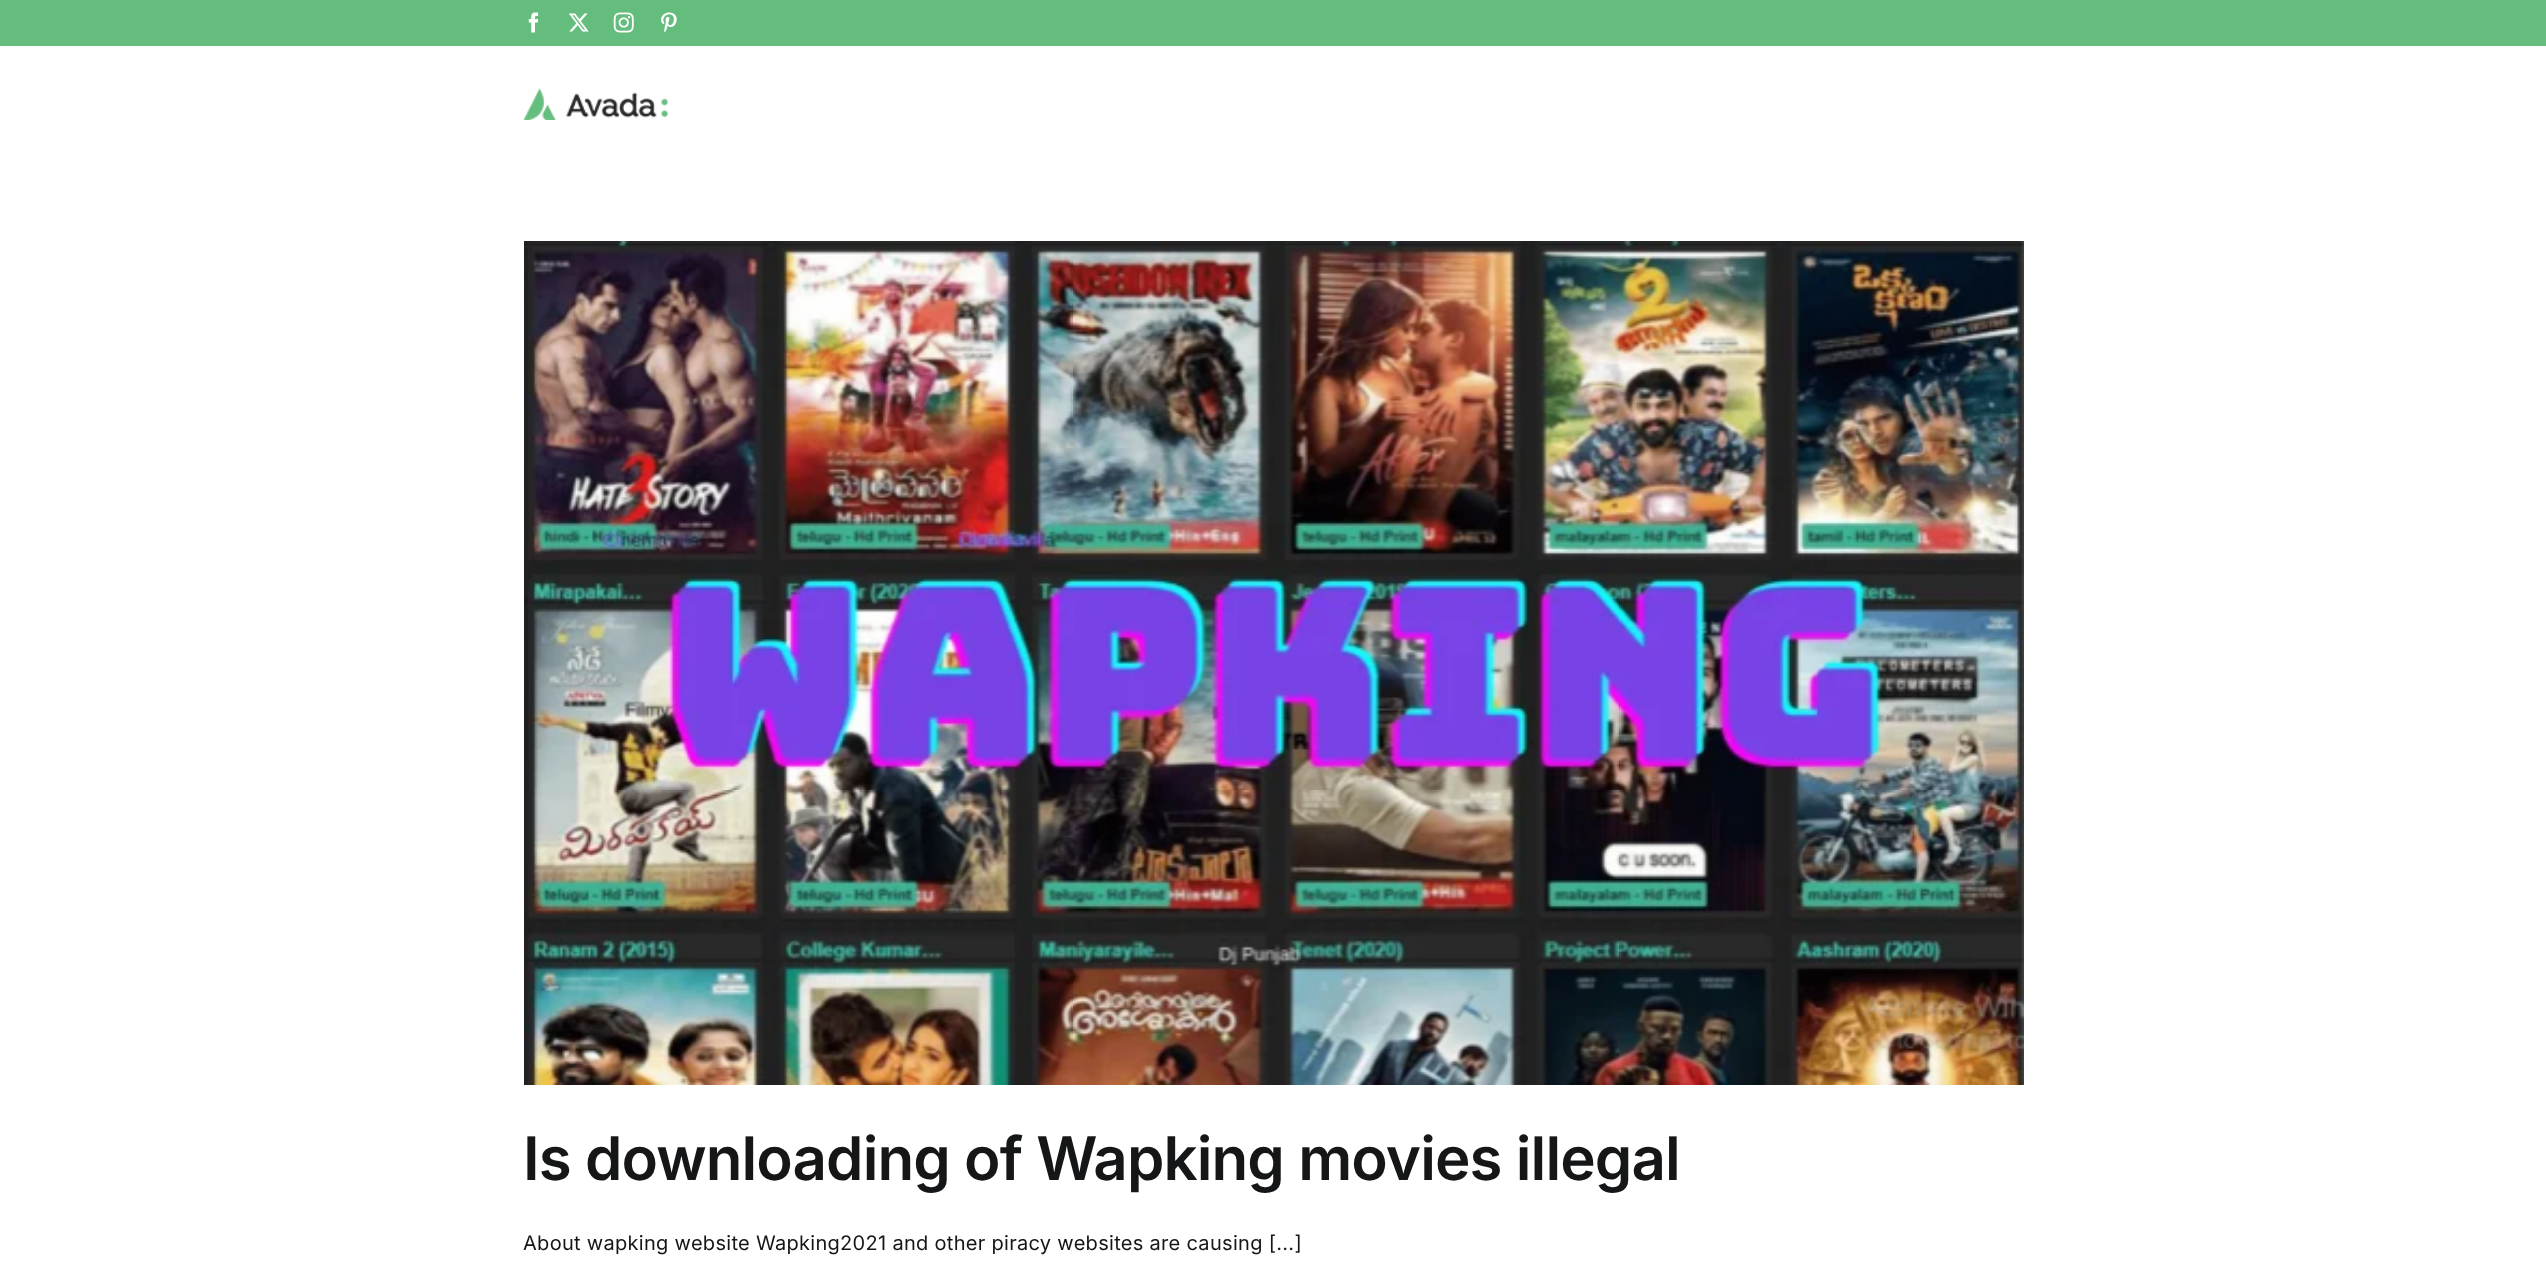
<!DOCTYPE html>
<meta charset="utf-8">
<style>body { margin: 0 } canvas { display: block }</style>
<canvas id="canvas" width="2546" height="1262"></canvas>
<img id="img1" src="images/1.png" hidden>
<img id="img2" src="images/2.png" hidden>
<img id="img3" src="images/3.png" hidden>
<img id="img4" src="images/4.png" hidden>
<img id="img5" src="images/5.png" hidden>
<img id="img6" src="images/6.png" hidden>
<script>
window.onload = function () {
    const canvas = document.getElementById('canvas');
    const context = canvas.getContext('2d');
    context.miterLimit = 4;
    context.fontKerning = 'normal';

    context.fillStyle = 'rgb(255, 255, 255)';
    context.fillRect(0, 0, 2546, 1262);
    context.fillStyle = 'rgb(101, 189, 125)';
    context.fillRect(0, 0, 2546, 46);
    context.drawImage(document.getElementById('img1'), 528, 12, 11, 21);
    context.drawImage(document.getElementById('img2'), 568, 13, 21, 19);
    context.drawImage(document.getElementById('img3'), 613, 12, 21, 21);
    context.drawImage(document.getElementById('img4'), 661, 12, 16, 21);
    context.drawImage(document.getElementById('img5'), 523, 88, 145, 32);
    context.drawImage(document.getElementById('img6'), 524, 241, 1500, 844);
    context.letterSpacing = '-0.9px';
    context.font = '600 60px Inter';
    context.fillStyle = 'rgb(20, 22, 23)';
    context.fillText('Is downloading of Wapking movies illegal', 523, 1180);
    context.letterSpacing = '0.3px';
    context.font = '20px Inter';
    context.fillText('About wapking website Wapking2021 and other piracy websites are causing [...]', 523, 1250);
};
</script>
